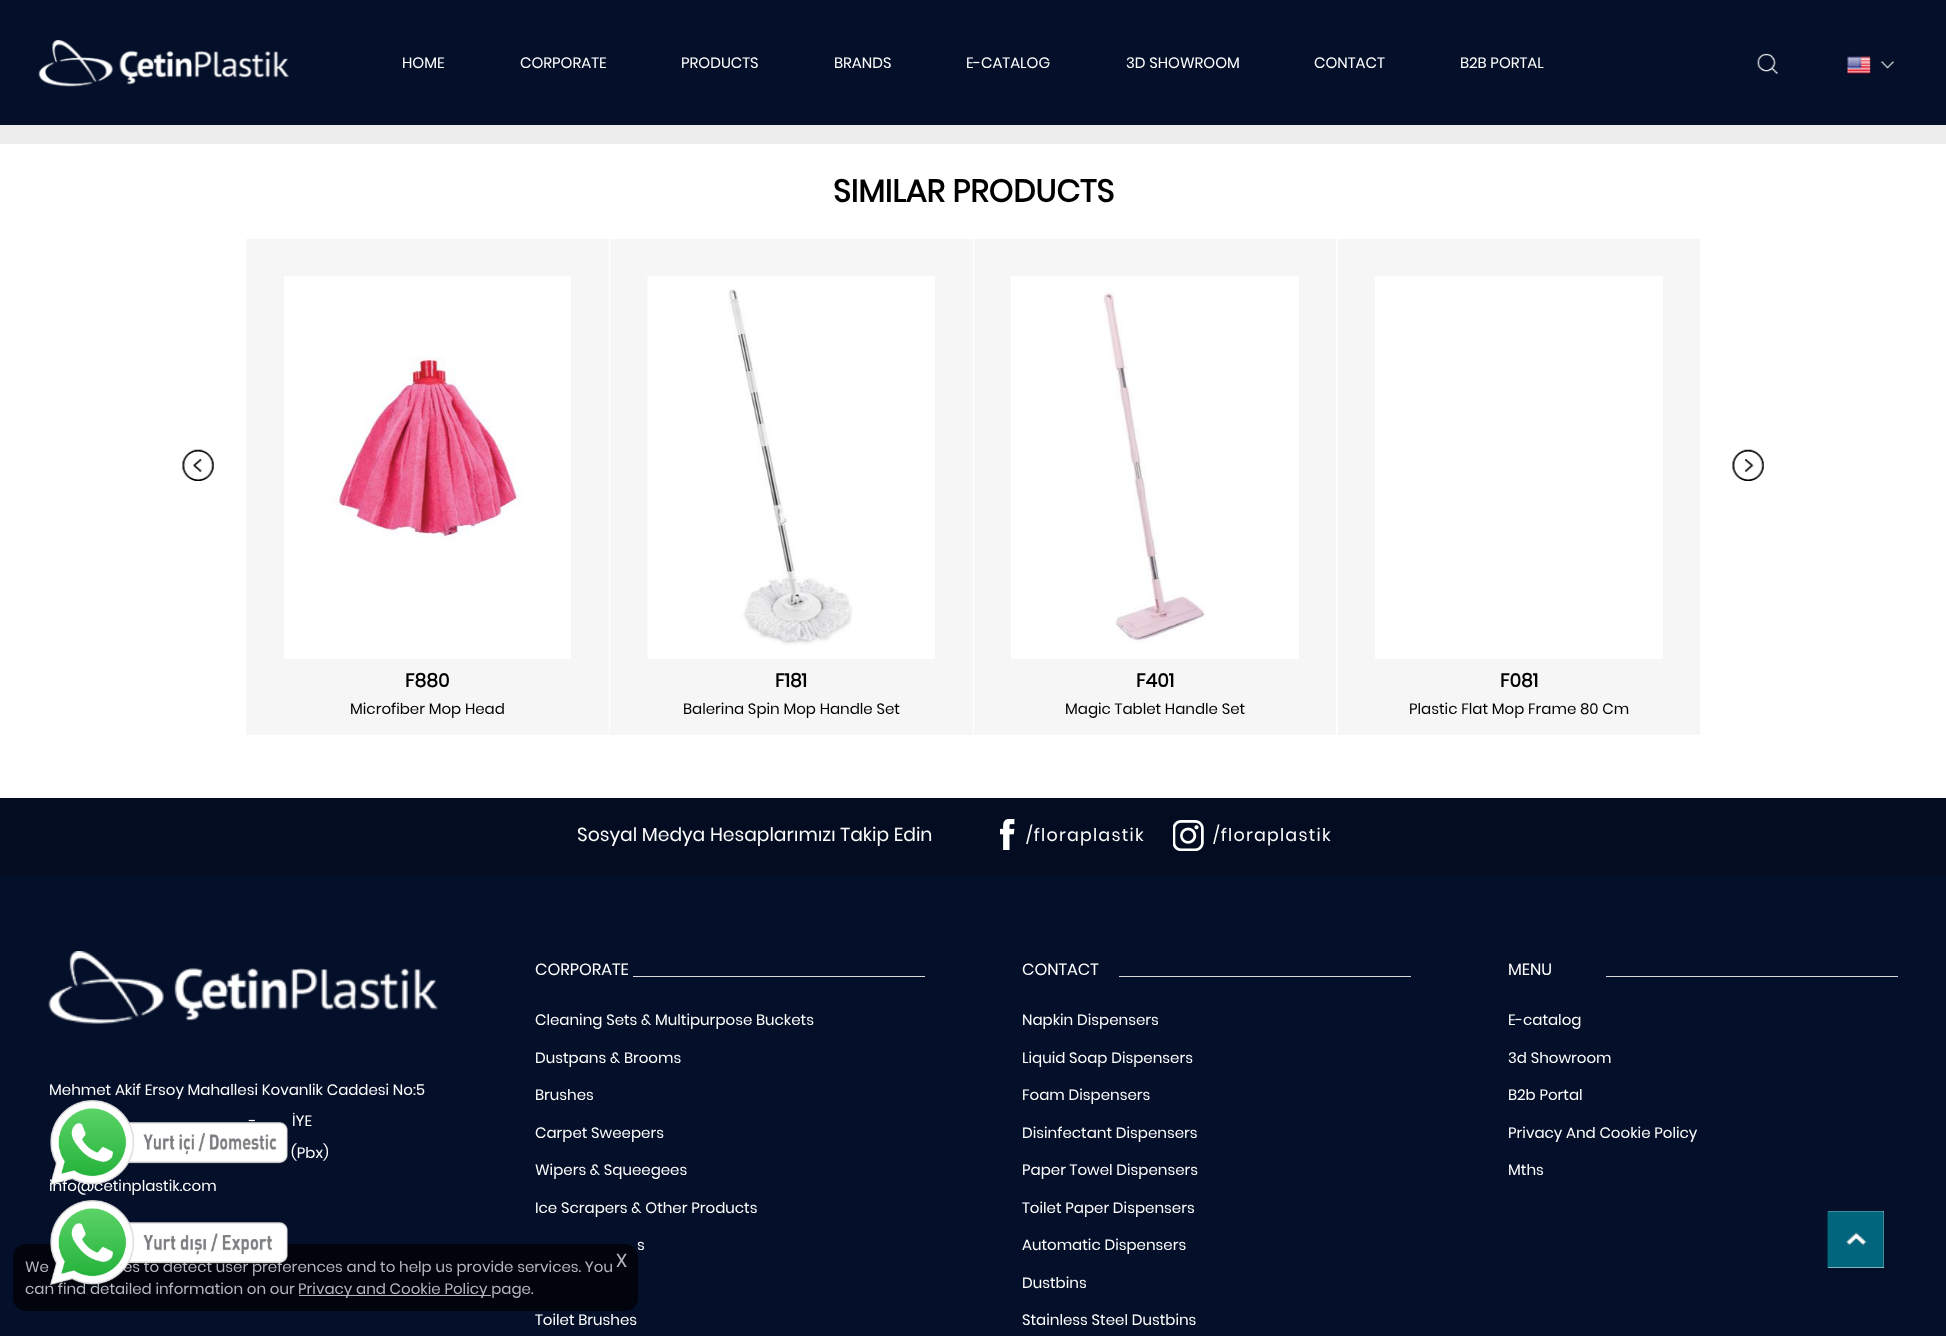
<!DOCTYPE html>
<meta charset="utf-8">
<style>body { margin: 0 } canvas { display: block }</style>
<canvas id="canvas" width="1946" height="1336"></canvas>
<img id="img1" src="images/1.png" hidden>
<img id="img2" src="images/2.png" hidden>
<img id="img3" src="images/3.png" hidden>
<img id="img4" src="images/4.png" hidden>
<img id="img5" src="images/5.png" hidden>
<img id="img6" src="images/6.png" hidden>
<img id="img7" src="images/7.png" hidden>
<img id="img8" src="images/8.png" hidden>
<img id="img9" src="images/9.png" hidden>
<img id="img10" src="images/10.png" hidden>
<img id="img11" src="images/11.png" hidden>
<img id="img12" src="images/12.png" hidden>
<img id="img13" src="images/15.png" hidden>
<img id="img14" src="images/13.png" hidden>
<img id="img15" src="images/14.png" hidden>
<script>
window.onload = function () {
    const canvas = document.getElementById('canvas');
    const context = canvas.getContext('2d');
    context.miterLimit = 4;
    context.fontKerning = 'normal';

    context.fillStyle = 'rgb(255, 255, 255)';
    context.fillRect(0, 0, 1946, 1336);
    context.fillStyle = 'rgb(4, 15, 41)';
    context.fillRect(0, 0, 1946, 125);
    context.drawImage(document.getElementById('img1'), 38, 40, 251, 47);
    context.drawImage(document.getElementById('img2'), 1757, 53, 21, 21);
    context.drawImage(document.getElementById('img3'), 1846, 55, 25, 19);
    context.drawImage(document.getElementById('img4'), 1880, 61, 14, 8);
    context.fillStyle = 'rgb(237, 237, 237)';
    context.fillRect(0, 125, 1946, 19);
    context.drawImage(document.getElementById('img5'), 182, 449, 32, 32);
    context.drawImage(document.getElementById('img6'), 1732, 449, 32, 32);
    context.fillStyle = 'rgb(246, 246, 246)';
    context.fillRect(246, 239, 363, 496);
    context.fillStyle = 'rgb(255, 255, 255)';
    context.fillRect(284, 276, 287, 383);
    context.drawImage(document.getElementById('img7'), 330, 356, 195, 184);
    context.fillStyle = 'rgb(246, 246, 246)';
    context.fillRect(610, 239, 363, 496);
    context.fillStyle = 'rgb(255, 255, 255)';
    context.fillRect(648, 276, 287, 383);
    context.drawImage(document.getElementById('img8'), 647, 276, 206, 382);
    context.fillStyle = 'rgb(246, 246, 246)';
    context.fillRect(974, 239, 362, 496);
    context.fillStyle = 'rgb(255, 255, 255)';
    context.fillRect(1011, 276, 288, 383);
    context.drawImage(document.getElementById('img9'), 1103, 288, 104, 355);
    context.fillStyle = 'rgb(246, 246, 246)';
    context.fillRect(1338, 239, 362, 496);
    context.fillStyle = 'rgb(255, 255, 255)';
    context.fillRect(1375, 276, 288, 383);
    context.fillStyle = 'rgb(4, 12, 33)';
    context.fillRect(0, 798, 1946, 78);
    context.drawImage(document.getElementById('img10'), 1000, 819, 15, 31);
    context.drawImage(document.getElementById('img11'), 1173, 820, 31, 31);
    context.fillStyle = 'rgb(4, 15, 41)';
    context.fillRect(0, 876, 1946, 460);
    context.drawImage(document.getElementById('img12'), 48, 951, 390, 73);
    context.fillStyle = 'rgb(218, 216, 219)';
    context.fillRect(633, 976, 292, 1);
    context.fillRect(1119, 976, 292, 1);
    context.fillRect(1606, 976, 292, 1);
    context.fillStyle = 'rgba(0, 0, 0, 0.7)';
    context.beginPath();
    context.roundRect(13, 1244, 625, 67, 13);
    context.fill();
    context.fillStyle = 'rgb(180, 183, 191)';
    context.fillRect(299, 1295, 192, 1);
    context.fillStyle = 'rgb(255, 255, 255)';
    context.fillRect(1828, 1211, 56, 57);
    context.drawImage(document.getElementById('img13'), 1827, 1211, 57, 57);
    context.font = '15px Poppins';
    context.fillText('HOME', 402, 68);
    context.fillText('CORPORATE', 520, 68);
    context.fillText('PRODUCTS', 681, 68);
    context.fillText('BRANDS', 834, 68);
    context.fillText('E-CATALOG', 966, 68);
    context.fillText('3D SHOWROOM', 1126, 68);
    context.fillText('CONTACT', 1314, 68);
    context.fillText('B2B PORTAL', 1460, 68);
    context.font = 'bold 31.25px Poppins';
    context.fillStyle = 'rgb(0, 0, 0)';
    context.fillText('SIMILAR PRODUCTS', 833, 202);
    context.font = 'bold 18.75px Poppins';
    context.fillText('F880', 405, 687);
    context.font = '15px Poppins';
    context.fillText('Microfiber Mop Head', 350, 714);
    context.font = 'bold 18.75px Poppins';
    context.fillText('F181', 775, 687);
    context.font = '15px Poppins';
    context.fillText('Balerina Spin Mop Handle Set', 683, 714);
    context.font = 'bold 18.75px Poppins';
    context.fillText('F401', 1136, 687);
    context.font = '15px Poppins';
    context.fillText('Magic Tablet Handle Set', 1065, 714);
    context.font = 'bold 18.75px Poppins';
    context.fillText('F081', 1500, 687);
    context.font = '15px Poppins';
    context.fillText('Plastic Flat Mop Frame 80 Cm', 1409, 714);
    context.font = '18.75px Poppins';
    context.fillStyle = 'rgb(255, 255, 255)';
    context.fillText('Sosyal Medya Hesaplarımızı Takip Edin', 577, 841);
    context.letterSpacing = '1.25px';
    context.font = '17.5px Poppins';
    context.fillText('/floraplastik', 1026, 841);
    context.fillText('/floraplastik', 1213, 841);
    context.letterSpacing = '0px';
    context.font = '15px Poppins';
    context.fillText('Mehmet Akif Ersoy Mahallesi Kovanlik Caddesi No:5', 49, 1095);
    context.fillText('-', 249, 1126);
    context.fillText('İYE', 292, 1126);
    context.fillText('(Pbx)', 291, 1158);
    context.fillText('info@cetinplastik.com', 49, 1191);
    context.font = '16.25px Poppins';
    context.fillText('CORPORATE', 535, 975);
    context.font = '15px Poppins';
    context.fillText('Cleaning Sets & Multipurpose Buckets', 535, 1025);
    context.fillText('Dustpans & Brooms', 535, 1063);
    context.fillText('Brushes', 535, 1100);
    context.fillText('Carpet Sweepers', 535, 1138);
    context.fillText('Wipers & Squeegees', 535, 1175);
    context.fillText('Ice Scrapers & Other Products', 535, 1213);
    context.fillText('s', 637, 1250);
    context.fillText('Toilet Brushes', 535, 1325);
    context.font = '16.25px Poppins';
    context.fillText('CONTACT', 1022, 975);
    context.font = '15px Poppins';
    context.fillText('Napkin Dispensers', 1022, 1025);
    context.fillText('Liquid Soap Dispensers', 1022, 1063);
    context.fillText('Foam Dispensers', 1022, 1100);
    context.fillText('Disinfectant Dispensers', 1022, 1138);
    context.fillText('Paper Towel Dispensers', 1022, 1175);
    context.fillText('Toilet Paper Dispensers', 1022, 1213);
    context.fillText('Automatic Dispensers', 1022, 1250);
    context.fillText('Dustbins', 1022, 1288);
    context.fillText('Stainless Steel Dustbins', 1022, 1325);
    context.font = '16.25px Poppins';
    context.fillText('MENU', 1508, 975);
    context.font = '15px Poppins';
    context.fillText('E-catalog', 1508, 1025);
    context.fillText('3d Showroom', 1508, 1063);
    context.fillText('B2b Portal', 1508, 1100);
    context.fillText('Privacy And Cookie Policy', 1508, 1138);
    context.fillText('Mths', 1508, 1175);
    context.fillStyle = 'rgb(180, 183, 191)';
    context.fillText('We', 25, 1272);
    context.fillText('es to detect user preferences and to help us provide services. You', 123, 1272);
    context.font = '18.75px Poppins';
    context.fillText('X', 616, 1267);
    context.font = '15px Poppins';
    context.fillText('can find detailed information on our', 25, 1294);
    context.fillText('Privacy and Cookie Policy page.', 298, 1294);
    context.drawImage(document.getElementById('img14'), 50, 1100, 238, 86);
    context.drawImage(document.getElementById('img15'), 50, 1200, 238, 86);
};
</script>
